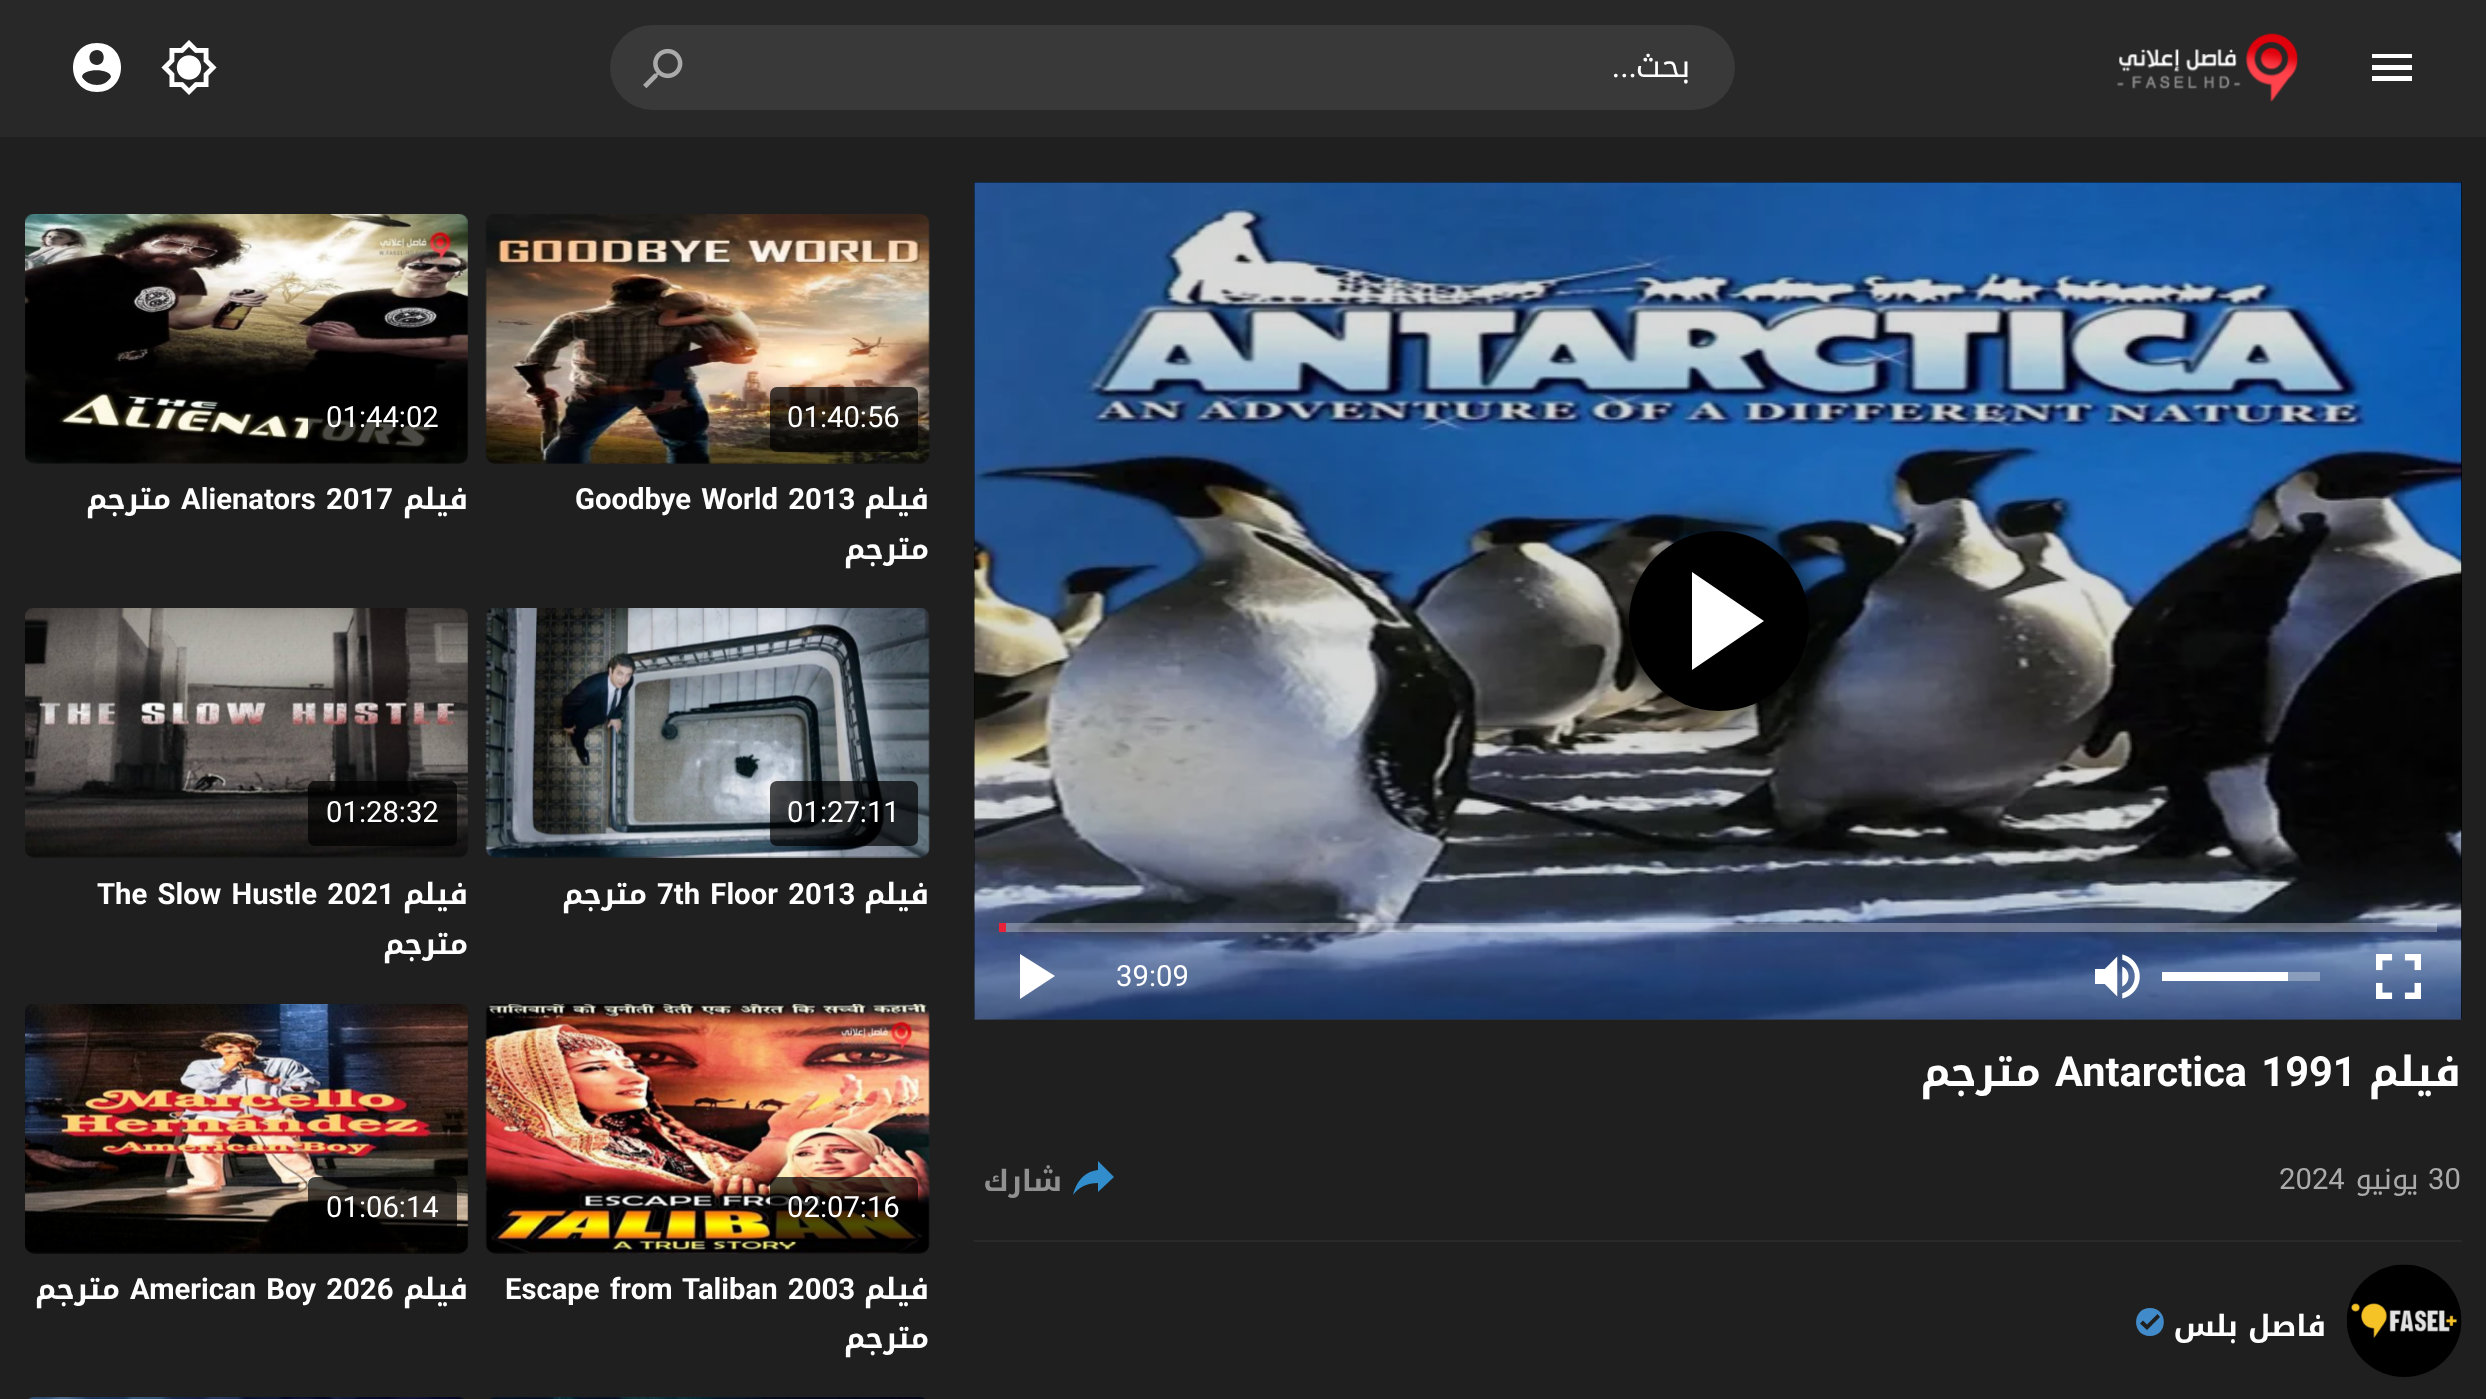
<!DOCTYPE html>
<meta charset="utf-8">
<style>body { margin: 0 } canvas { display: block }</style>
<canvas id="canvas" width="2486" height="1399"></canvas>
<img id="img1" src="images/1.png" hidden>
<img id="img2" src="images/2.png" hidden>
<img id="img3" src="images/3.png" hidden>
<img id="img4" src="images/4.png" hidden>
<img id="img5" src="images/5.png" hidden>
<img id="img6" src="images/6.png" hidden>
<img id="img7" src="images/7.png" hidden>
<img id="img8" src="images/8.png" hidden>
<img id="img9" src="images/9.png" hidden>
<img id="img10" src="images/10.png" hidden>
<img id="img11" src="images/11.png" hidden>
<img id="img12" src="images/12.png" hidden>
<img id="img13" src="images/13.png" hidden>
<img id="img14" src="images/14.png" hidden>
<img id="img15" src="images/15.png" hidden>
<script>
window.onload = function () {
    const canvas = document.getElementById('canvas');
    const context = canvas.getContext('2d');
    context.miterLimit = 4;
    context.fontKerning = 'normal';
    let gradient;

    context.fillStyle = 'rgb(31, 31, 31)';
    context.fillRect(0, 0, 2486, 1399);
    context.fillStyle = 'rgb(40, 40, 40)';
    context.fillRect(0, 0, 2486, 137);
    context.fillStyle = 'rgb(255, 255, 255)';
    context.beginPath();
    context.moveTo(97, 85);
    context.bezierCurveTo(91, 85, 85, 82, 82, 77);
    context.bezierCurveTo(82, 68, 111, 68, 111, 77);
    context.bezierCurveTo(108, 82, 103, 85, 97, 85);
    context.moveTo(97, 50);
    context.bezierCurveTo(106, 50, 106, 65, 97, 65);
    context.bezierCurveTo(87, 65, 87, 50, 97, 50);
    context.moveTo(97, 43);
    context.bezierCurveTo(65, 43, 65, 92, 97, 92);
    context.bezierCurveTo(129, 92, 129, 43, 97, 43);
    context.closePath();
    context.fill();
    context.drawImage(document.getElementById('img1'), 161, 40, 56, 55);
    context.fillStyle = 'rgb(57, 57, 57)';
    context.beginPath();
    context.roundRect(610, 25, 112, 85, [42.5, 0, 0, 42.5]);
    context.fill();
    context.drawImage(document.getElementById('img2'), 643, 48, 40, 41);
    context.beginPath();
    context.roundRect(722, 25, 1013, 85, [0, 42.5, 42.5, 0]);
    context.fill();
    context.drawImage(document.getElementById('img3'), 2117, 33, 181, 69);
    context.fillStyle = 'rgb(255, 255, 255)';
    context.beginPath();
    context.moveTo(2372, 54);
    context.lineTo(2412, 54);
    context.lineTo(2412, 58);
    context.lineTo(2372, 58);
    context.lineTo(2372, 54);
    context.moveTo(2372, 65);
    context.lineTo(2412, 65);
    context.lineTo(2412, 70);
    context.lineTo(2372, 70);
    context.lineTo(2372, 65);
    context.moveTo(2372, 76);
    context.lineTo(2412, 76);
    context.lineTo(2412, 81);
    context.lineTo(2372, 81);
    context.closePath();
    context.fill();
    context.drawImage(document.getElementById('img4'), 25, 214, 444, 250);
    context.fillStyle = 'rgba(0, 0, 0, 0.7)';
    context.beginPath();
    context.roundRect(308, 387, 149, 65, 7);
    context.fill();
    context.drawImage(document.getElementById('img5'), 485, 214, 445, 250);
    context.beginPath();
    context.roundRect(770, 387, 148, 65, 7);
    context.fill();
    context.drawImage(document.getElementById('img6'), 25, 608, 444, 250);
    context.beginPath();
    context.roundRect(308, 781, 149, 65, 7);
    context.fill();
    context.drawImage(document.getElementById('img7'), 485, 608, 445, 250);
    context.beginPath();
    context.roundRect(770, 781, 148, 65, 7);
    context.fill();
    context.drawImage(document.getElementById('img8'), 25, 1004, 444, 250);
    context.beginPath();
    context.roundRect(308, 1177, 149, 65, 7);
    context.fill();
    context.drawImage(document.getElementById('img9'), 485, 1004, 445, 250);
    context.beginPath();
    context.roundRect(770, 1177, 148, 65, 7);
    context.fill();
    context.drawImage(document.getElementById('img10'), 28, 1397, 436, 2);
    context.drawImage(document.getElementById('img11'), 490, 1397, 435, 2);
    context.fillStyle = 'rgb(0, 0, 0)';
    context.fillRect(974, 182, 1488, 837);
    context.drawImage(document.getElementById('img12'), 974, 182, 1488, 838);
    context.filter = 'blur(22.5px)';
    context.beginPath();
    context.roundRect(1629, 531, 180, 180, 90);
    context.fill();
    context.filter = 'none';
    context.beginPath();
    context.arc(1719, 621, 90, 0, 2 * Math.PI);
    context.fill();
    context.fillStyle = 'rgb(255, 255, 255)';
    context.beginPath();
    context.moveTo(1692, 670);
    context.lineTo(1692, 572);
    context.lineTo(1764, 621);
    context.closePath();
    context.fill();
    gradient = context.createLinearGradient(1718, 922, 1718, 1022);
    gradient.addColorStop(0, 'rgba(0, 0, 0, 0)');
    gradient.addColorStop(1, 'rgba(0, 0, 0, 0.4)');
    context.fillStyle = gradient;
    context.fillRect(974, 927, 1488, 92);
    context.fillStyle = 'rgba(255, 255, 255, 0.3)';
    context.fillRect(1006, 923, 1431, 9);
    context.fillStyle = 'rgb(232, 34, 57)';
    context.fillRect(999, 923, 7, 9);
    context.fillStyle = 'rgb(255, 255, 255)';
    context.beginPath();
    context.moveTo(1020, 954);
    context.lineTo(1020, 999);
    context.lineTo(1055, 976);
    context.closePath();
    context.fill();
    context.drawImage(document.getElementById('img13'), 2095, 954, 45, 45);
    context.fillStyle = 'rgba(255, 255, 255, 0.3)';
    context.fillRect(2288, 972, 32, 9);
    context.fillStyle = 'rgb(255, 255, 255)';
    context.fillRect(2162, 972, 126, 9);
    context.drawImage(document.getElementById('img14'), 2376, 954, 45, 45);
    context.fillStyle = 'rgb(41, 41, 41)';
    context.fillRect(974, 1240, 1488, 2);
    context.fillStyle = 'rgb(49, 141, 203)';
    context.beginPath();
    context.moveTo(1114, 1177);
    context.lineTo(1098, 1161);
    context.lineTo(1098, 1170);
    context.bezierCurveTo(1082, 1172, 1076, 1184, 1073, 1195);
    context.bezierCurveTo(1079, 1187, 1087, 1183, 1098, 1183);
    context.lineTo(1098, 1192);
    context.closePath();
    context.fill();
    context.fillStyle = 'rgb(66, 139, 202)';
    context.beginPath();
    context.moveTo(2150, 1308);
    context.bezierCurveTo(2131.5, 1308, 2131.5, 1336, 2150, 1336);
    context.bezierCurveTo(2168.5, 1336, 2168.5, 1308, 2150, 1308);
    context.closePath();
    context.moveTo(2147, 1330);
    context.lineTo(2140, 1323.5);
    context.lineTo(2143, 1320.5);
    context.lineTo(2147, 1324.5);
    context.lineTo(2157.5, 1314);
    context.lineTo(2160, 1317);
    context.closePath();
    context.fill();
    context.drawImage(document.getElementById('img15'), 2347, 1264, 115, 113);
    context.direction = 'rtl';
    context.font = '32px Roboto';
    context.fillStyle = 'rgb(255, 255, 255)';
    context.fillText('...', 1637, 77);
    context.font = '32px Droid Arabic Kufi';
    context.fillText('بحث', 1690, 77);
    context.direction = 'ltr';
    context.font = '29.25px Roboto';
    context.fillText('01:44:02', 326, 427);
    context.direction = 'rtl';
    context.font = 'bold 29.25px Droid Arabic Kufi';
    context.fillText('مترجم', 171, 509);
    context.wordSpacing = '3px';
    context.direction = 'ltr';
    context.font = 'bold 29.25px Roboto';
    context.fillText('Alienators 2017', 181, 509);
    context.wordSpacing = '0px';
    context.direction = 'rtl';
    context.font = 'bold 29.25px Droid Arabic Kufi';
    context.fillText('فيلم', 468, 509);
    context.direction = 'ltr';
    context.font = '29.25px Roboto';
    context.fillText('01:40:56', 787, 427);
    context.wordSpacing = '3px';
    context.font = 'bold 29.25px Roboto';
    context.fillText('Goodbye World 2013', 575, 509);
    context.wordSpacing = '0px';
    context.direction = 'rtl';
    context.font = 'bold 29.25px Droid Arabic Kufi';
    context.fillText('فيلم', 929, 509);
    context.fillText('مترجم', 929, 559);
    context.direction = 'ltr';
    context.font = '29.25px Roboto';
    context.fillText('01:28:32', 326, 822);
    context.wordSpacing = '3px';
    context.font = 'bold 29.25px Roboto';
    context.fillText('The Slow Hustle 2021', 97, 904);
    context.wordSpacing = '0px';
    context.direction = 'rtl';
    context.font = 'bold 29.25px Droid Arabic Kufi';
    context.fillText('فيلم', 468, 904);
    context.fillText('مترجم', 468, 954);
    context.direction = 'ltr';
    context.font = '29.25px Roboto';
    context.fillText('01:27:11', 787, 822);
    context.direction = 'rtl';
    context.font = 'bold 29.25px Droid Arabic Kufi';
    context.fillText('مترجم', 647, 904);
    context.wordSpacing = '3px';
    context.direction = 'ltr';
    context.font = 'bold 29.25px Roboto';
    context.fillText('7th Floor 2013', 657, 904);
    context.wordSpacing = '0px';
    context.direction = 'rtl';
    context.font = 'bold 29.25px Droid Arabic Kufi';
    context.fillText('فيلم', 929, 904);
    context.direction = 'ltr';
    context.font = '29.25px Roboto';
    context.fillText('01:06:14', 326, 1217);
    context.direction = 'rtl';
    context.font = 'bold 29.25px Droid Arabic Kufi';
    context.fillText('مترجم', 120, 1299);
    context.wordSpacing = '3px';
    context.direction = 'ltr';
    context.font = 'bold 29.25px Roboto';
    context.fillText('American Boy 2026', 130, 1299);
    context.wordSpacing = '0px';
    context.direction = 'rtl';
    context.font = 'bold 29.25px Droid Arabic Kufi';
    context.fillText('فيلم', 468, 1299);
    context.direction = 'ltr';
    context.font = '29.25px Roboto';
    context.fillText('02:07:16', 787, 1217);
    context.wordSpacing = '3px';
    context.font = 'bold 29.25px Roboto';
    context.fillText('Escape from Taliban 2003', 505, 1299);
    context.wordSpacing = '0px';
    context.direction = 'rtl';
    context.font = 'bold 29.25px Droid Arabic Kufi';
    context.fillText('فيلم', 929, 1299);
    context.fillText('مترجم', 929, 1348);
    context.direction = 'ltr';
    context.font = '29.25px Roboto';
    context.fillText('39:09', 1116, 986);
    context.direction = 'rtl';
    context.font = 'bold 41.5px Droid Arabic Kufi';
    context.fillText('مترجم', 2041, 1086);
    context.wordSpacing = '4px';
    context.direction = 'ltr';
    context.font = 'bold 41.5px Roboto';
    context.fillText('Antarctica 1991', 2055, 1086);
    context.wordSpacing = '0px';
    context.direction = 'rtl';
    context.font = 'bold 41.5px Droid Arabic Kufi';
    context.fillText('فيلم', 2461, 1086);
    context.font = 'bold 29.25px Droid Arabic Kufi';
    context.fillStyle = 'rgb(144, 144, 144)';
    context.fillText('شارك', 1062, 1191);
    context.direction = 'ltr';
    context.font = '29.25px Roboto';
    context.fillStyle = 'rgb(170, 170, 170)';
    context.fillText('2024', 2279, 1189);
    context.direction = 'rtl';
    context.font = '29.25px Droid Arabic Kufi';
    context.fillText('يونيو', 2419, 1189);
    context.direction = 'ltr';
    context.font = '29.25px Roboto';
    context.fillText('30', 2428, 1189);
    context.direction = 'rtl';
    context.font = 'bold 29.25px Droid Arabic Kufi';
    context.fillStyle = 'rgb(255, 255, 255)';
    context.fillText('فاصل بلس', 2326, 1336);
};
</script>
